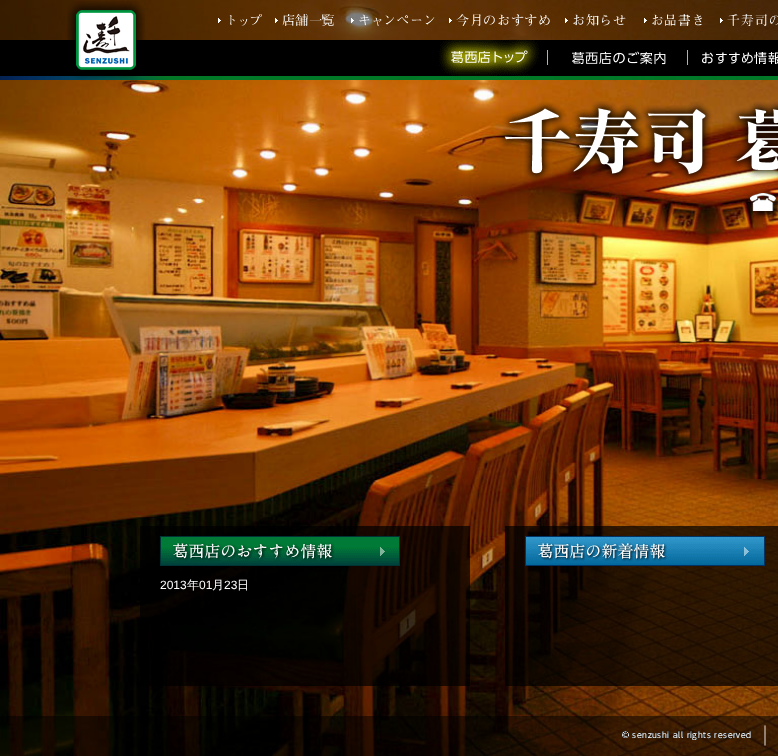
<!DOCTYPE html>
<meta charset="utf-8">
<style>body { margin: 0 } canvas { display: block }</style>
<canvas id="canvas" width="778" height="756"></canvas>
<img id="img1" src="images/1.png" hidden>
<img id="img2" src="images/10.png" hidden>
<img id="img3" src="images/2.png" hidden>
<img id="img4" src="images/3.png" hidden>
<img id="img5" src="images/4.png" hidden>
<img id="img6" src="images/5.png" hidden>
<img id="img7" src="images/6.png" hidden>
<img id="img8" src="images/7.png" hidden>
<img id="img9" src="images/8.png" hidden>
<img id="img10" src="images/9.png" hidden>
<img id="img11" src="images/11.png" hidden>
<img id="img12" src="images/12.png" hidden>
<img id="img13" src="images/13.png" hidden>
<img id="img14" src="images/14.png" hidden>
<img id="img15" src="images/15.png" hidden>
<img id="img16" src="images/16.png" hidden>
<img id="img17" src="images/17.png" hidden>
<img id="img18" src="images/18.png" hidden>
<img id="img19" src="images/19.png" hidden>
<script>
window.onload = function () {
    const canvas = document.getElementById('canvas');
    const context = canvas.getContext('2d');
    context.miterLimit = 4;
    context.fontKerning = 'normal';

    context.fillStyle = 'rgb(255, 255, 255)';
    context.fillRect(0, 0, 778, 756);
    context.drawImage(document.getElementById('img1'), 0, 0, 778, 756);
    context.fillStyle = 'rgba(0, 0, 0, 0.5)';
    context.fillRect(0, 0, 778, 40);
    context.fillStyle = 'rgb(0, 0, 0)';
    context.fillRect(0, 40, 778, 36);
    context.drawImage(document.getElementById('img2'), 0, 76, 778, 4);
    context.drawImage(document.getElementById('img3'), 67, 1, 78, 79);
    context.drawImage(document.getElementById('img4'), 218, 14, 44, 12);
    context.drawImage(document.getElementById('img5'), 275, 14, 59, 12);
    context.drawImage(document.getElementById('img6'), 351, 14, 84, 12);
    context.drawImage(document.getElementById('img7'), 449, 14, 101, 12);
    context.drawImage(document.getElementById('img8'), 565, 14, 61, 12);
    context.drawImage(document.getElementById('img9'), 644, 14, 58, 12);
    context.drawImage(document.getElementById('img10'), 720, 14, 58, 12);
    context.drawImage(document.getElementById('img11'), 439, 40, 101, 36);
    context.fillStyle = 'rgb(177, 177, 177)';
    context.fillRect(547, 50, 1, 15);
    context.drawImage(document.getElementById('img12'), 572, 51, 94, 14);
    context.fillRect(687, 50, 1, 15);
    context.drawImage(document.getElementById('img13'), 702, 52, 76, 12);
    context.drawImage(document.getElementById('img14'), 497, 101, 281, 80);
    context.drawImage(document.getElementById('img15'), 750, 193, 28, 26);
    context.fillStyle = 'rgba(0, 0, 0, 0.7)';
    context.fillRect(140, 526, 330, 160);
    context.drawImage(document.getElementById('img16'), 160, 536, 240, 30);
    context.fillRect(505, 526, 273, 160);
    context.drawImage(document.getElementById('img17'), 525, 536, 240, 30);
    context.fillStyle = 'rgba(0, 0, 0, 0.5)';
    context.fillRect(0, 716, 778, 40);
    context.drawImage(document.getElementById('img18'), 622, 731, 129, 9);
    context.drawImage(document.getElementById('img19'), 764, 725, 2, 21);
    context.font = '12px Liberation Sans';
    context.fillStyle = 'rgb(255, 255, 255)';
    context.fillText('2013', 160, 589);
    context.font = '500 12px WenQuanYi Zen Hei';
    context.fillText('年', 187, 589);
    context.font = '12px Liberation Sans';
    context.fillText('01', 199, 589);
    context.font = '500 12px WenQuanYi Zen Hei';
    context.fillText('月', 212, 589);
    context.font = '12px Liberation Sans';
    context.fillText('23', 224, 589);
    context.font = '500 12px WenQuanYi Zen Hei';
    context.fillText('日', 237, 589);
};
</script>
